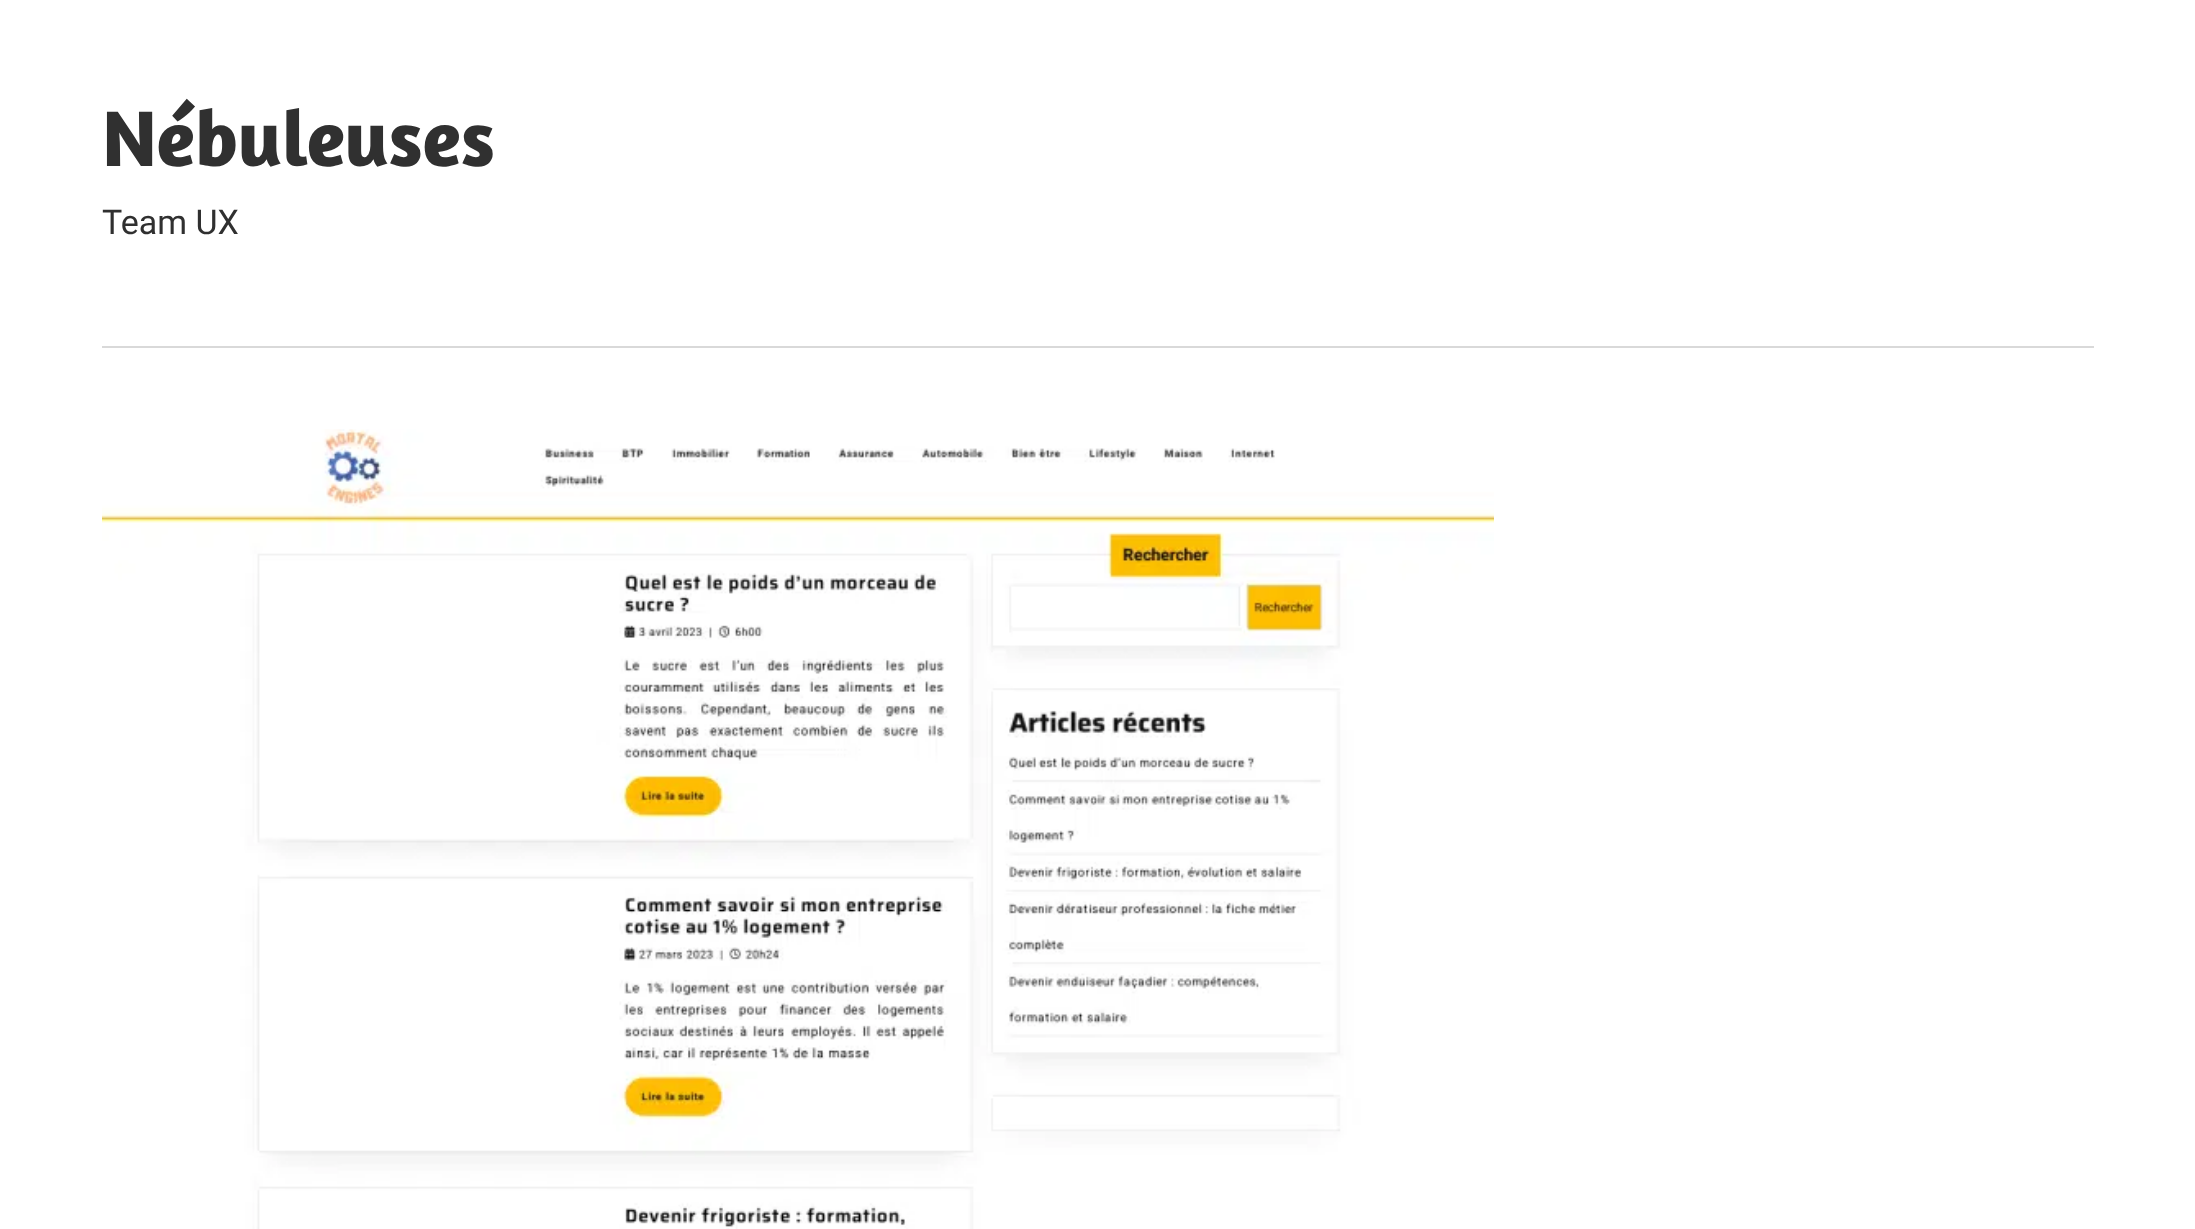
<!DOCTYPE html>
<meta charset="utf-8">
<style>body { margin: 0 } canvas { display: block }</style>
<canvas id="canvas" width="2195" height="1229"></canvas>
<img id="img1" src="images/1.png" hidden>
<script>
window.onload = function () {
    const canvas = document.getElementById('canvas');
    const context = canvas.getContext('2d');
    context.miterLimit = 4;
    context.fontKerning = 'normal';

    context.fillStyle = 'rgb(255, 255, 255)';
    context.fillRect(0, 0, 2195, 1229);
    context.fillStyle = 'rgb(217, 217, 217)';
    context.fillRect(102, 346, 1992, 2);
    context.drawImage(document.getElementById('img1'), 102, 429, 1392, 800);
    context.font = 'bold 80px Amaranth';
    context.fillStyle = 'rgb(48, 48, 48)';
    context.fillText('Nébuleuses', 102, 166);
    context.font = '34px Roboto';
    context.fillText('Team UX', 102, 234);
};
</script>
